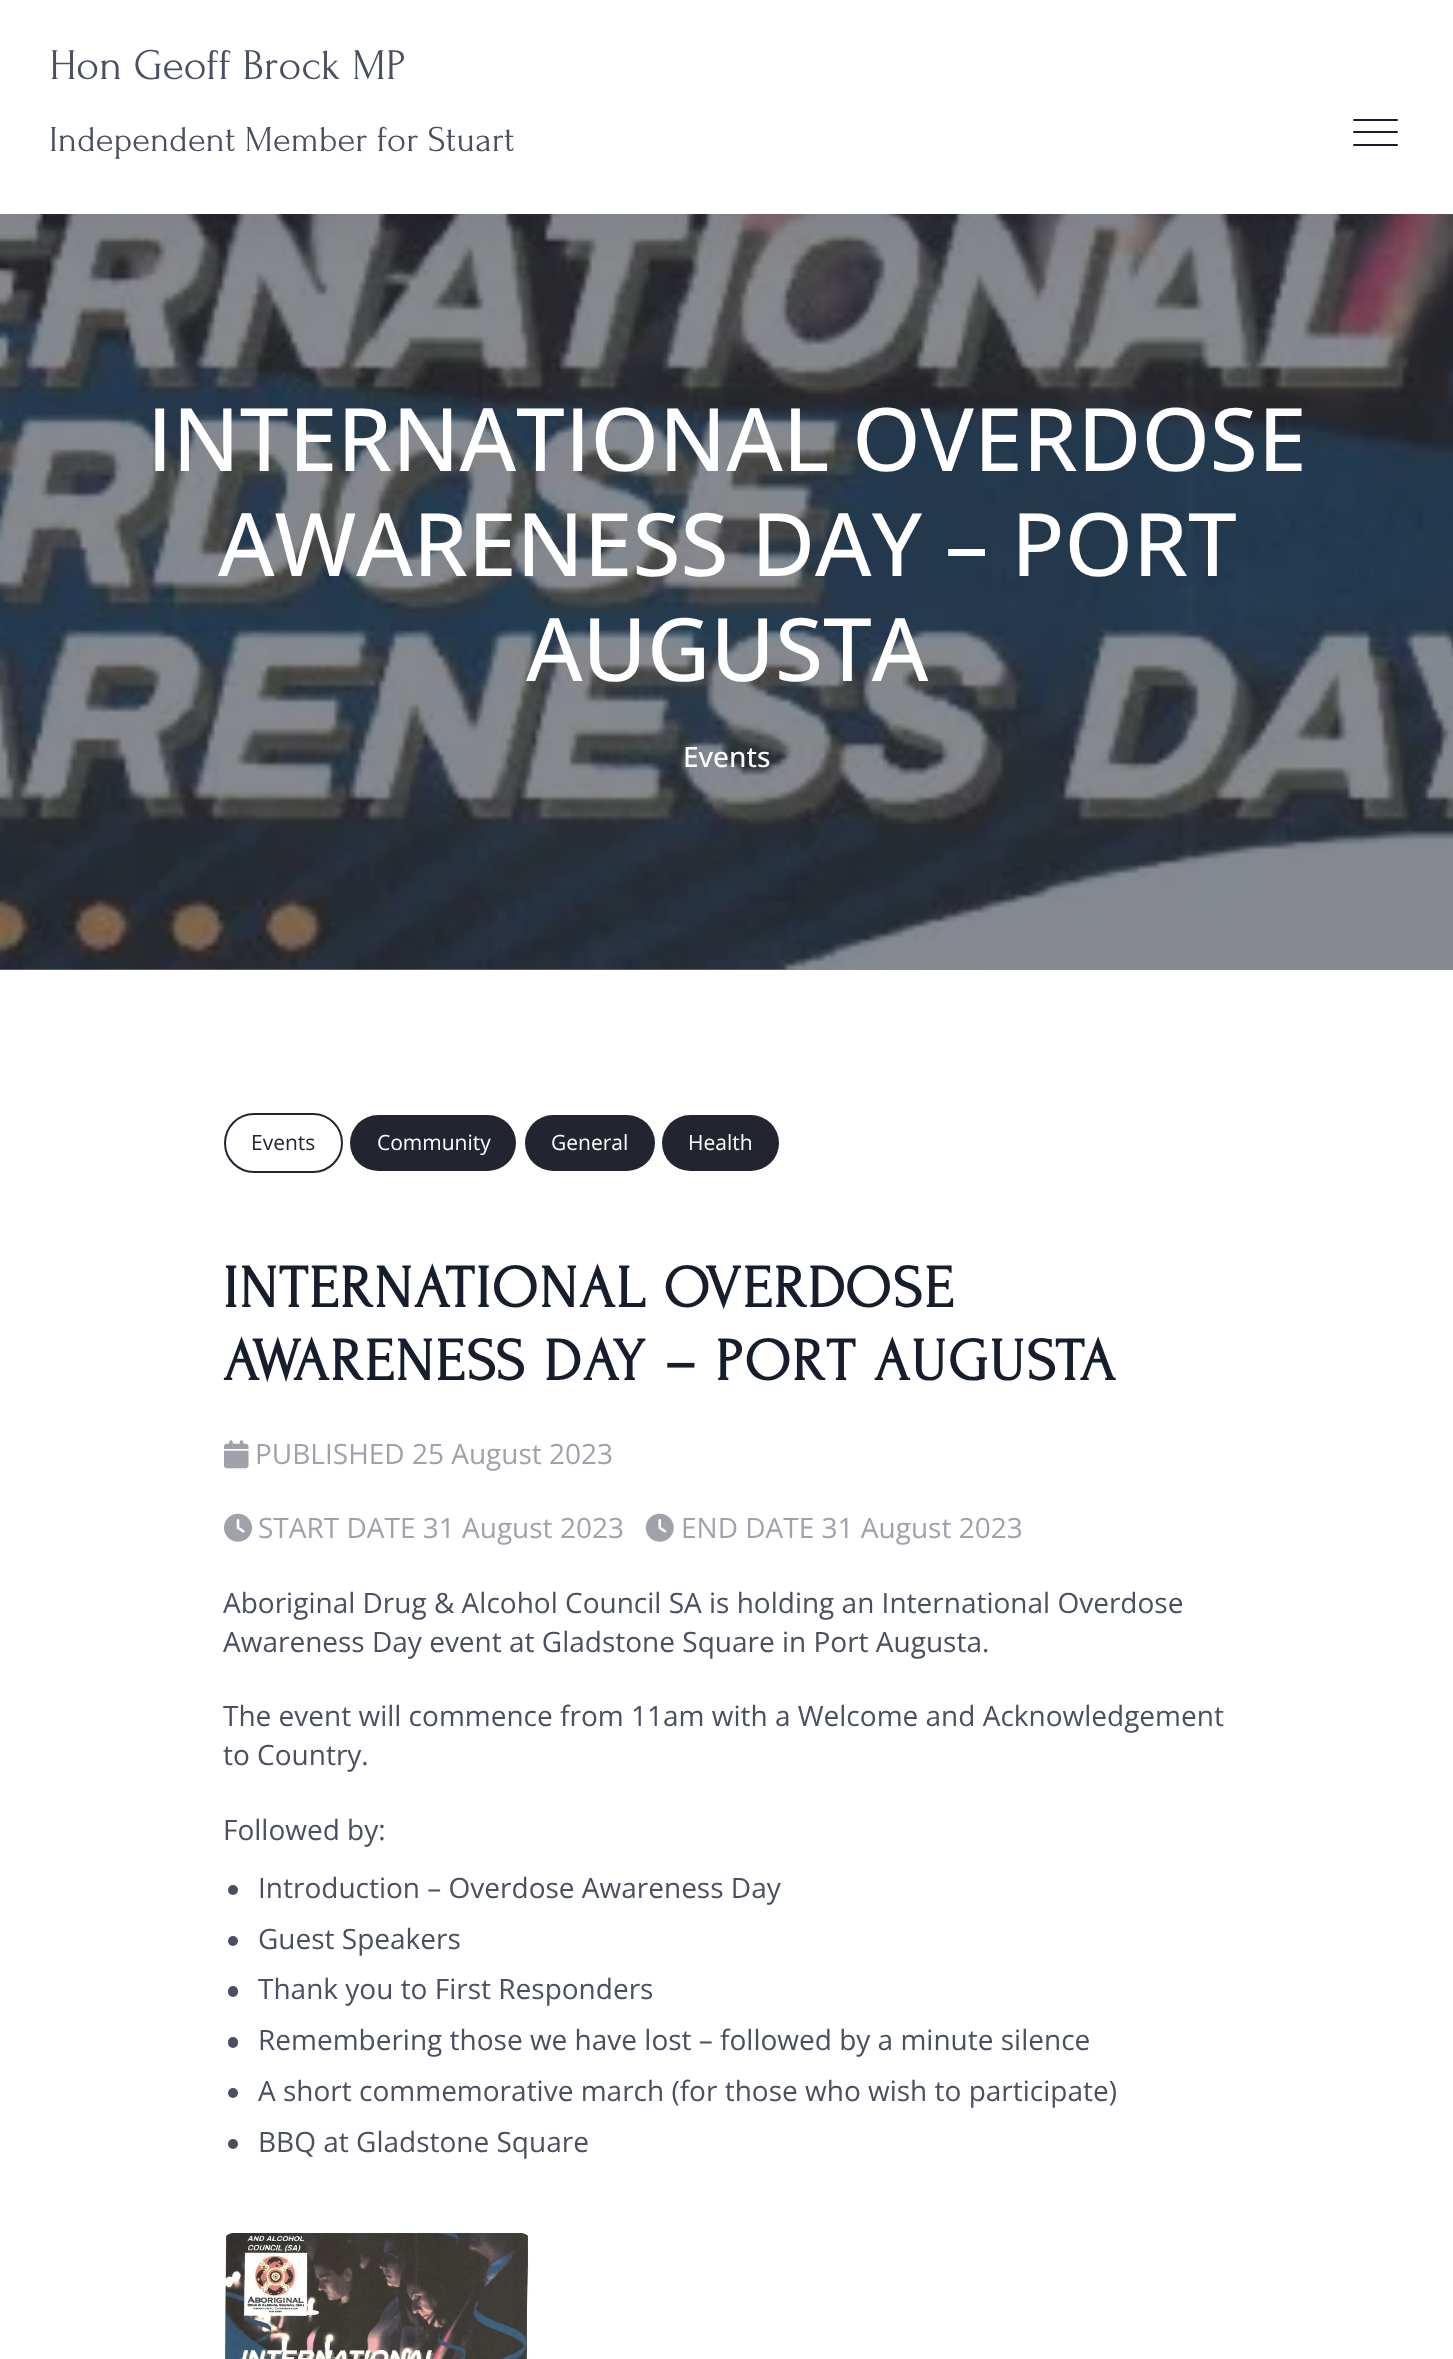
<!DOCTYPE html>
<meta charset="utf-8">
<style>body { margin: 0 } canvas { display: block }</style>
<canvas id="canvas" width="1453" height="2359"></canvas>
<img id="img1" src="images/1.png" hidden>
<img id="img2" src="images/2.png" hidden>
<img id="img3" src="images/3.png" hidden>
<img id="img4" src="images/4.png" hidden>
<img id="img5" src="images/5.png" hidden>
<script>
window.onload = function () {
    const canvas = document.getElementById('canvas');
    const context = canvas.getContext('2d');
    context.miterLimit = 4;
    context.fontKerning = 'normal';

    context.fillStyle = 'rgb(255, 255, 255)';
    context.fillRect(0, 0, 1453, 2359);
    context.fillStyle = 'rgb(134, 137, 144)';
    context.fillRect(0, 969, 1453, 1);
    context.drawImage(document.getElementById('img1'), 0, 214, 1453, 756);
    context.fillStyle = 'rgba(1, 6, 33, 0.06)';
    context.filter = 'blur(24.5px)';
    context.beginPath();
    context.rect(0, 4, 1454, 213);
    context.fill();
    context.filter = 'none';
    context.fillStyle = 'rgb(255, 255, 255)';
    context.fillRect(0, 0, 1453, 214);
    context.fillStyle = 'rgb(22, 30, 46)';
    context.beginPath();
    context.roundRect(1353, 119, 26, 2, [1, 0, 0, 1]);
    context.fill();
    context.beginPath();
    context.roundRect(1372, 119, 26, 2, [0, 1, 1, 0]);
    context.fill();
    context.beginPath();
    context.roundRect(1353, 131, 26, 2, [1, 0, 0, 1]);
    context.fill();
    context.beginPath();
    context.roundRect(1372, 131, 26, 2, [0, 1, 1, 0]);
    context.fill();
    context.beginPath();
    context.roundRect(1353, 144, 26, 2, [1, 0, 0, 1]);
    context.fill();
    context.beginPath();
    context.roundRect(1372, 144, 26, 2, [0, 1, 1, 0]);
    context.fill();
    context.beginPath();
    context.roundRect(225, 1114, 117, 58, 29);
    context.strokeStyle = 'rgb(34, 37, 48)';
    context.lineWidth = 2;
    context.stroke();
    context.fillStyle = 'rgb(34, 37, 48)';
    context.beginPath();
    context.roundRect(350, 1115, 166, 56, 28);
    context.fill();
    context.beginPath();
    context.roundRect(525, 1115, 130, 56, 28);
    context.fill();
    context.beginPath();
    context.roundRect(662, 1115, 117, 56, 28);
    context.fill();
    context.drawImage(document.getElementById('img2'), 224, 1440, 25, 29);
    context.drawImage(document.getElementById('img3'), 224, 1513, 28, 29);
    context.drawImage(document.getElementById('img4'), 645, 1513, 29, 29);
    context.fillStyle = 'rgb(74, 79, 97)';
    context.beginPath();
    context.arc(233, 1890, 5, 0, 2 * Math.PI);
    context.fill();
    context.beginPath();
    context.arc(233, 1941, 5, 0, 2 * Math.PI);
    context.fill();
    context.beginPath();
    context.roundRect(228, 1986, 10, 11, 5);
    context.fill();
    context.beginPath();
    context.roundRect(228, 2037, 10, 11, 5);
    context.fill();
    context.beginPath();
    context.arc(233, 2093, 5, 0, 2 * Math.PI);
    context.fill();
    context.beginPath();
    context.arc(233, 2144, 5, 0, 2 * Math.PI);
    context.fill();
    context.fillStyle = 'rgb(240, 244, 255)';
    context.beginPath();
    context.roundRect(224, 2233, 306, 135, 9);
    context.fill();
    context.drawImage(document.getElementById('img5'), 224, 2233, 306, 126);
    context.font = '43.75px Forum';
    context.fillStyle = 'rgb(74, 79, 97)';
    context.fillText('Hon Geoff Brock MP', 49, 79);
    context.font = '36.4px Forum';
    context.fillText('Independent Member for Stuart', 49, 151);
    context.font = '500 87.5px Open Sans';
    context.fillStyle = 'rgb(255, 255, 255)';
    context.fillText('INTERNATIONAL OVERDOSE', 147, 471);
    context.fillText('AWARENESS DAY – PORT', 218, 576);
    context.fillText('AUGUSTA', 526, 681);
    context.font = '500 28px Open Sans';
    context.fillText('Events', 683, 767);
    context.font = '21px Open Sans';
    context.fillStyle = 'rgb(34, 37, 48)';
    context.fillText('Events', 251, 1150);
    context.fillStyle = 'rgb(255, 255, 255)';
    context.fillText('Community', 377, 1150);
    context.fillText('General', 551, 1150);
    context.fillText('Health', 688, 1150);
    context.letterSpacing = '1.75px';
    context.font = 'bold 60.25px Forum';
    context.fillStyle = 'rgb(22, 30, 46)';
    context.fillText('INTERNATIONAL OVERDOSE', 223, 1307);
    context.fillText('AWARENESS DAY – PORT AUGUSTA', 223, 1380);
    context.letterSpacing = '0px';
    context.font = '28px Open Sans';
    context.fillStyle = 'rgb(159, 162, 171)';
    context.fillText('PUBLISHED 25 August 2023', 255, 1464);
    context.fillText('START DATE 31 August 2023', 258, 1538);
    context.fillText('END DATE 31 August 2023', 681, 1538);
    context.fillStyle = 'rgb(74, 79, 97)';
    context.fillText('Aboriginal Drug & Alcohol Council SA is holding an International Overdose', 223, 1613);
    context.fillText('Awareness Day event at Gladstone Square in Port Augusta.', 223, 1652);
    context.fillText('The event will commence from 11am with a Welcome and Acknowledgement', 223, 1726);
    context.fillText('to Country.', 223, 1765);
    context.fillText('Followed by:', 223, 1840);
    context.fillText('Introduction – Overdose Awareness Day', 258, 1898);
    context.fillText('Guest Speakers', 258, 1949);
    context.fillText('Thank you to First Responders', 258, 1999);
    context.fillText('Remembering those we have lost – followed by a minute silence', 258, 2050);
    context.fillText('A short commemorative march (for those who wish to participate)', 258, 2101);
    context.fillText('BBQ at Gladstone Square', 258, 2152);
};
</script>
